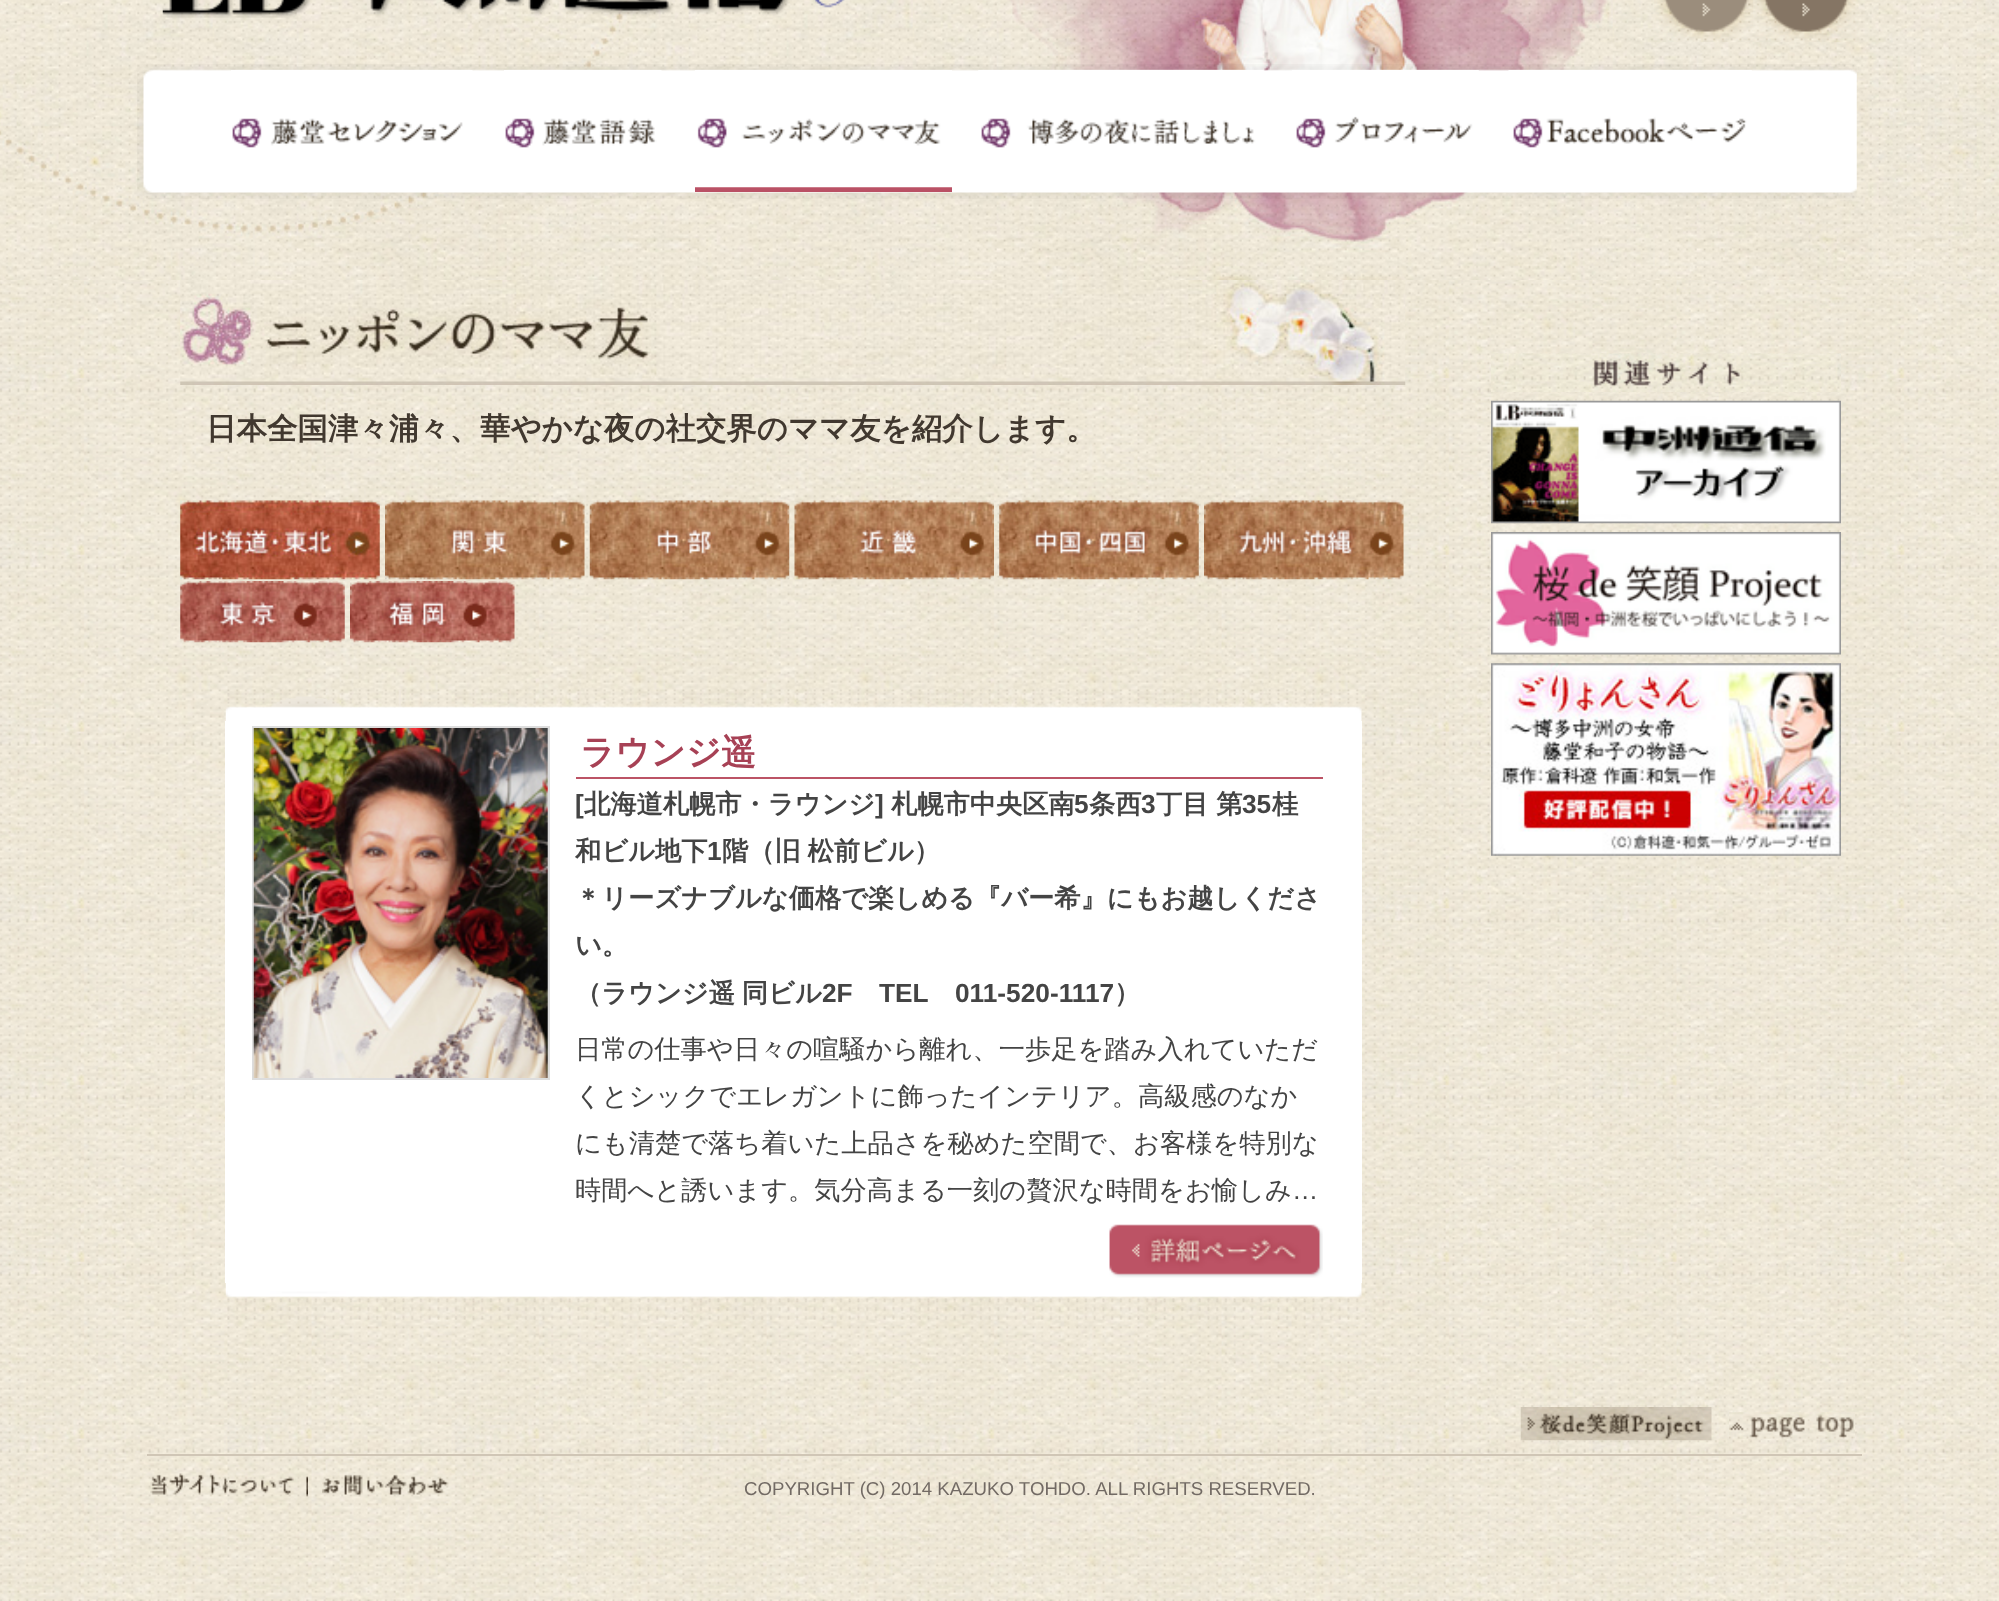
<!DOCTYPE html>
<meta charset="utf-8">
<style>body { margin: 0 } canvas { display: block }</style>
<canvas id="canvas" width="1999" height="1601"></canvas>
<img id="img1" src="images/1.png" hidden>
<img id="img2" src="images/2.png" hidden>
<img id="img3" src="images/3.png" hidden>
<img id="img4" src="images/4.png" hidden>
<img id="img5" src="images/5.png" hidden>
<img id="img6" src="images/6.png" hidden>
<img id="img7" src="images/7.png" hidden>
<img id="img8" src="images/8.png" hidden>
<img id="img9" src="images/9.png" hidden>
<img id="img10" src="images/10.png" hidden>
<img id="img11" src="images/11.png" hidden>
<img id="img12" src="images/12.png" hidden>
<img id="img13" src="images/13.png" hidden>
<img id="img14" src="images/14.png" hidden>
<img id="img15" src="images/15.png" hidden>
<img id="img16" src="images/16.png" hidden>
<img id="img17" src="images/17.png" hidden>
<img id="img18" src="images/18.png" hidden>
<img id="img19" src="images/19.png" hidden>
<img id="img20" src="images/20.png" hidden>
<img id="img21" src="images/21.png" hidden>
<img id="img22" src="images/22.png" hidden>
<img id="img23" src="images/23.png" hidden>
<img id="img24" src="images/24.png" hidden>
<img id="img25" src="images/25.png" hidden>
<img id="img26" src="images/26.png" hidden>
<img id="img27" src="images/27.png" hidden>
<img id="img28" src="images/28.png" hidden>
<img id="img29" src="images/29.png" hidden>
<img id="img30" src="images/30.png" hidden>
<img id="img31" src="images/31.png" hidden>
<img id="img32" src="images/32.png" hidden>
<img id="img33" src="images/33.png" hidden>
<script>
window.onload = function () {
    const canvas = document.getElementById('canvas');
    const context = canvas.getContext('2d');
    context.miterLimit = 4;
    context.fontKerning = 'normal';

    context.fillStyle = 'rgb(255, 255, 255)';
    context.fillRect(0, 0, 1999, 1601);
    context.drawImage(document.getElementById('img1'), 0, 280, 1999, 1321);
    context.drawImage(document.getElementById('img2'), 0, 0, 1999, 280);
    context.drawImage(document.getElementById('img3'), 162, 0, 683, 18);
    context.drawImage(document.getElementById('img4'), 1654, 0, 100, 42);
    context.drawImage(document.getElementById('img5'), 1754, 0, 105, 42);
    context.drawImage(document.getElementById('img6'), 137, 64, 1720, 135);
    context.drawImage(document.getElementById('img7'), 231, 70, 242, 78);
    context.drawImage(document.getElementById('img8'), 504, 70, 158, 78);
    context.fillStyle = 'rgb(186, 81, 101)';
    context.fillRect(695, 187, 257, 5);
    context.drawImage(document.getElementById('img9'), 695, 70, 257, 118);
    context.drawImage(document.getElementById('img10'), 978, 70, 286, 78);
    context.drawImage(document.getElementById('img11'), 1292, 70, 187, 78);
    context.drawImage(document.getElementById('img12'), 1508, 70, 244, 78);
    context.drawImage(document.getElementById('img13'), 180, 280, 1226, 105);
    context.drawImage(document.getElementById('img14'), 180, 500, 200, 80);
    context.drawImage(document.getElementById('img15'), 385, 500, 200, 80);
    context.drawImage(document.getElementById('img16'), 589, 500, 201, 80);
    context.drawImage(document.getElementById('img17'), 794, 500, 200, 80);
    context.drawImage(document.getElementById('img18'), 999, 500, 200, 80);
    context.drawImage(document.getElementById('img19'), 1204, 500, 200, 80);
    context.drawImage(document.getElementById('img20'), 180, 581, 165, 62);
    context.drawImage(document.getElementById('img21'), 350, 581, 165, 62);
    context.drawImage(document.getElementById('img22'), 225, 690, 1137, 31);
    context.drawImage(document.getElementById('img23'), 225, 1283, 1137, 35);
    context.fillStyle = 'rgb(255, 255, 255)';
    context.fillRect(225, 721, 1137, 562);
    context.strokeStyle = 'rgb(221, 221, 221)';
    context.lineWidth = 2;
    context.strokeRect(253, 727, 296, 352);
    context.drawImage(document.getElementById('img24'), 253, 728, 295, 350);
    context.fillStyle = 'rgb(188, 83, 101)';
    context.fillRect(576, 777, 747, 2);
    context.drawImage(document.getElementById('img25'), 1109, 1224, 214, 54);
    context.drawImage(document.getElementById('img26'), 1491, 353, 350, 39);
    context.drawImage(document.getElementById('img27'), 1491, 400, 350, 124);
    context.drawImage(document.getElementById('img28'), 1491, 532, 350, 123);
    context.drawImage(document.getElementById('img29'), 1491, 663, 350, 193);
    context.drawImage(document.getElementById('img30'), 1520, 1407, 192, 34);
    context.drawImage(document.getElementById('img31'), 1729, 1412, 126, 27);
    context.fillStyle = 'rgb(208, 198, 182)';
    context.fillRect(147, 1454, 1715, 2);
    context.drawImage(document.getElementById('img32'), 150, 1473, 158, 24);
    context.drawImage(document.getElementById('img33'), 322, 1474, 127, 21);
    context.font = 'bold 30.45px WenQuanYi Zen Hei';
    context.fillStyle = 'rgb(65, 56, 47)';
    context.fillText('日本全国津々浦々、華やかな夜の社交界のママ友を紹介します。', 206, 439);
    context.font = 'bold 34.5px WenQuanYi Zen Hei';
    context.fillStyle = 'rgb(167, 65, 85)';
    context.fillText('ラウンジ遥', 580, 764);
    context.font = 'bold 26.25px Liberation Sans';
    context.fillStyle = 'rgb(68, 68, 68)';
    context.fillText('[', 575, 813);
    context.font = 'bold 26.25px WenQuanYi Zen Hei';
    context.fillText('北海道札幌市・ラウンジ', 584, 813);
    context.font = 'bold 26.25px Liberation Sans';
    context.fillText(']', 875, 813);
    context.font = 'bold 26.25px WenQuanYi Zen Hei';
    context.fillText('札幌市中央区南', 891, 813);
    context.font = 'bold 26.25px Liberation Sans';
    context.fillText('5', 1074, 813);
    context.font = 'bold 26.25px WenQuanYi Zen Hei';
    context.fillText('条西', 1089, 813);
    context.font = 'bold 26.25px Liberation Sans';
    context.fillText('3', 1141, 813);
    context.font = 'bold 26.25px WenQuanYi Zen Hei';
    context.fillText('丁目 第', 1156, 813);
    context.font = 'bold 26.25px Liberation Sans';
    context.fillText('35', 1242, 813);
    context.font = 'bold 26.25px WenQuanYi Zen Hei';
    context.fillText('桂', 1272, 813);
    context.fillText('和ビル地下', 575, 860);
    context.font = 'bold 26.25px Liberation Sans';
    context.fillText('1', 707, 860);
    context.wordSpacing = '-1px';
    context.font = 'bold 26.25px WenQuanYi Zen Hei';
    context.fillText('階（旧 松前ビル）', 722, 860);
    context.wordSpacing = '0px';
    context.fillText('＊リーズナブルな価格で楽しめる『バー希』にもお越しくださ', 575, 907);
    context.fillText('い。', 575, 954);
    context.wordSpacing = '-1px';
    context.fillText('（ラウンジ遥 同ビル', 575, 1002);
    context.wordSpacing = '0px';
    context.font = 'bold 26.25px Liberation Sans';
    context.fillText('2F', 822, 1002);
    context.fillText('TEL', 879, 1002);
    context.fillText('011-520-1117', 955, 1002);
    context.font = 'bold 26.25px WenQuanYi Zen Hei';
    context.fillText('）', 1114, 1002);
    context.font = '500 26.25px WenQuanYi Zen Hei';
    context.fillText('日常の仕事や日々の喧騒から離れ、一歩足を踏み入れていただ', 575, 1058);
    context.fillText('くとシックでエレガントに飾ったインテリア。高級感のなか', 575, 1105);
    context.fillText('にも清楚で落ち着いた上品さを秘めた空間で、お客様を特別な', 575, 1152);
    context.fillText('時間へと誘います。気分高まる一刻の贅沢な時間をお愉しみ', 575, 1199);
    context.font = '26.25px Liberation Sans';
    context.fillText('…', 1292, 1199);
    context.font = '18.65px Liberation Sans';
    context.fillStyle = 'rgb(114, 106, 100)';
    context.fillText('COPYRIGHT (C) 2014 KAZUKO TOHDO. ALL RIGHTS RESERVED.', 744, 1495);
};
</script>
